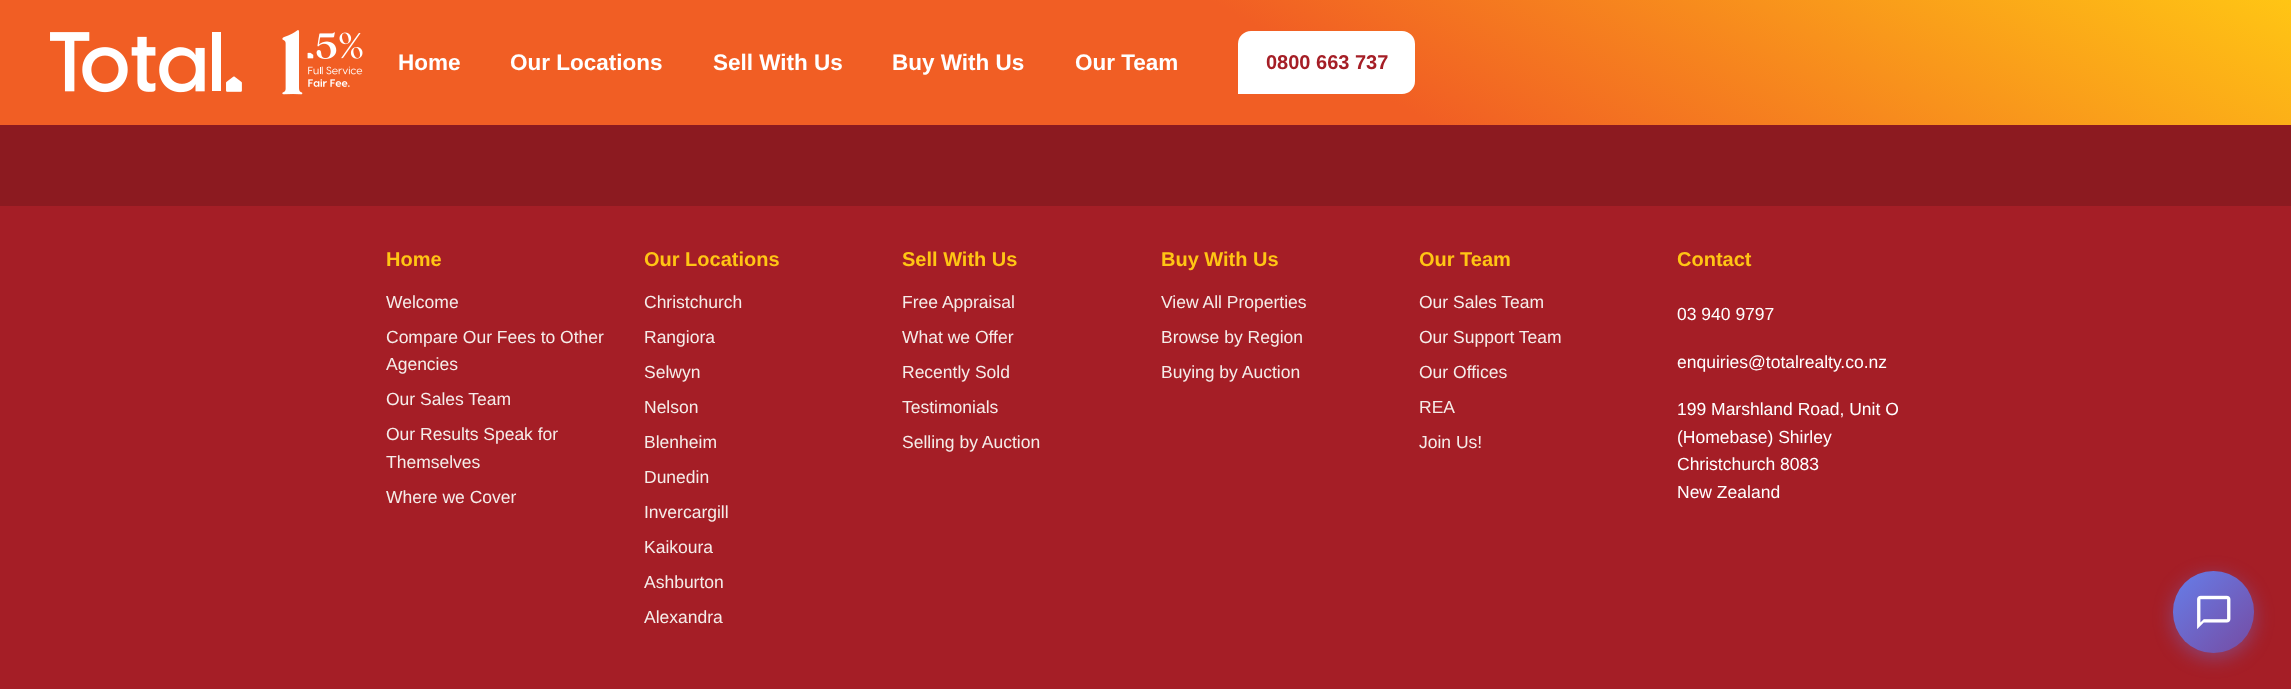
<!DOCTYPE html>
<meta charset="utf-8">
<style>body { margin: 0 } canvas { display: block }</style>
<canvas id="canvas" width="2291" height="689"></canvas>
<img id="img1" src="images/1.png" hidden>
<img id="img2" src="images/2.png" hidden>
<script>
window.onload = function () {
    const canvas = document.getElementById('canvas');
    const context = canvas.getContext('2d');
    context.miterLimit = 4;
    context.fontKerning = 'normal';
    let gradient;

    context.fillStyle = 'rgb(165, 30, 38)';
    context.fillRect(0, 0, 2291, 689);
    gradient = context.createLinearGradient(850, 596, 1441, -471);
    gradient.addColorStop(0, 'rgb(241, 94, 36)');
    gradient.addColorStop(0.57, 'rgb(241, 94, 36)');
    gradient.addColorStop(1, 'rgb(255, 197, 20)');
    context.fillStyle = gradient;
    context.fillRect(0, 0, 2291, 125);
    context.drawImage(document.getElementById('img1'), 50, 30, 313, 65);
    context.fillStyle = 'rgb(255, 255, 255)';
    context.beginPath();
    context.roundRect(1239.5, 32.5, 174, 60, [11.5, 11.5, 11.5, 0]);
    context.fill();
    context.strokeStyle = 'rgb(255, 255, 255)';
    context.lineWidth = 3;
    context.stroke();
    context.fillStyle = 'rgb(140, 26, 32)';
    context.fillRect(0, 125, 2291, 81);
    context.fillStyle = 'rgba(102, 126, 234, 0.4)';
    context.filter = 'blur(9.5px)';
    context.beginPath();
    context.roundRect(2173, 576, 81, 82, 40.5);
    context.fill();
    context.filter = 'none';
    gradient = context.createLinearGradient(2173, 571, 2254, 653);
    gradient.addColorStop(0, 'rgb(102, 126, 234)');
    gradient.addColorStop(1, 'rgb(118, 75, 162)');
    context.fillStyle = gradient;
    context.beginPath();
    context.roundRect(2173, 571, 81, 82, 40.5);
    context.fill();
    context.drawImage(document.getElementById('img2'), 2197, 595, 34, 34);
    context.font = 'bold 22.5px Liberation Sans';
    context.fillStyle = 'rgb(255, 255, 255)';
    context.fillText('Home', 398, 70);
    context.fillText('Our Locations', 510, 70);
    context.fillText('Sell With Us', 713, 70);
    context.fillText('Buy With Us', 892, 70);
    context.fillText('Our Team', 1075, 70);
    context.font = 'bold 20px Liberation Sans';
    context.fillStyle = 'rgb(165, 30, 38)';
    context.fillText('0800 663 737', 1266, 69);
    context.fillStyle = 'rgb(255, 197, 20)';
    context.fillText('Home', 386, 266);
    context.font = '17.5px Liberation Sans';
    context.fillStyle = 'rgb(245, 236, 233)';
    context.fillText('Welcome', 386, 308);
    context.fillText('Compare Our Fees to Other', 386, 343);
    context.fillText('Agencies', 386, 370);
    context.fillText('Our Sales Team', 386, 405);
    context.fillText('Our Results Speak for', 386, 440);
    context.fillText('Themselves', 386, 468);
    context.fillText('Where we Cover', 386, 503);
    context.font = 'bold 20px Liberation Sans';
    context.fillStyle = 'rgb(255, 197, 20)';
    context.fillText('Our Locations', 644, 266);
    context.font = '17.5px Liberation Sans';
    context.fillStyle = 'rgb(245, 236, 233)';
    context.fillText('Christchurch', 644, 308);
    context.fillText('Rangiora', 644, 343);
    context.fillText('Selwyn', 644, 378);
    context.fillText('Nelson', 644, 413);
    context.fillText('Blenheim', 644, 448);
    context.fillText('Dunedin', 644, 483);
    context.fillText('Invercargill', 644, 518);
    context.fillText('Kaikoura', 644, 553);
    context.fillText('Ashburton', 644, 588);
    context.fillText('Alexandra', 644, 623);
    context.font = 'bold 20px Liberation Sans';
    context.fillStyle = 'rgb(255, 197, 20)';
    context.fillText('Sell With Us', 902, 266);
    context.font = '17.5px Liberation Sans';
    context.fillStyle = 'rgb(245, 236, 233)';
    context.fillText('Free Appraisal', 902, 308);
    context.fillText('What we Offer', 902, 343);
    context.fillText('Recently Sold', 902, 378);
    context.fillText('Testimonials', 902, 413);
    context.fillText('Selling by Auction', 902, 448);
    context.font = 'bold 20px Liberation Sans';
    context.fillStyle = 'rgb(255, 197, 20)';
    context.fillText('Buy With Us', 1161, 266);
    context.font = '17.5px Liberation Sans';
    context.fillStyle = 'rgb(245, 236, 233)';
    context.fillText('View All Properties', 1161, 308);
    context.fillText('Browse by Region', 1161, 343);
    context.fillText('Buying by Auction', 1161, 378);
    context.font = 'bold 20px Liberation Sans';
    context.fillStyle = 'rgb(255, 197, 20)';
    context.fillText('Our Team', 1419, 266);
    context.font = '17.5px Liberation Sans';
    context.fillStyle = 'rgb(245, 236, 233)';
    context.fillText('Our Sales Team', 1419, 308);
    context.fillText('Our Support Team', 1419, 343);
    context.fillText('Our Offices', 1419, 378);
    context.fillText('REA', 1419, 413);
    context.fillText('Join Us!', 1419, 448);
    context.font = 'bold 20px Liberation Sans';
    context.fillStyle = 'rgb(255, 197, 20)';
    context.fillText('Contact', 1677, 266);
    context.font = '17.5px Liberation Sans';
    context.fillStyle = 'rgb(255, 255, 255)';
    context.fillText('03 940 9797', 1677, 320);
    context.fillText('enquiries@totalrealty.co.nz', 1677, 368);
    context.fillText('199 Marshland Road, Unit O', 1677, 415);
    context.fillText('(Homebase) Shirley', 1677, 443);
    context.fillText('Christchurch 8083', 1677, 470);
    context.fillText('New Zealand', 1677, 498);
};
</script>
